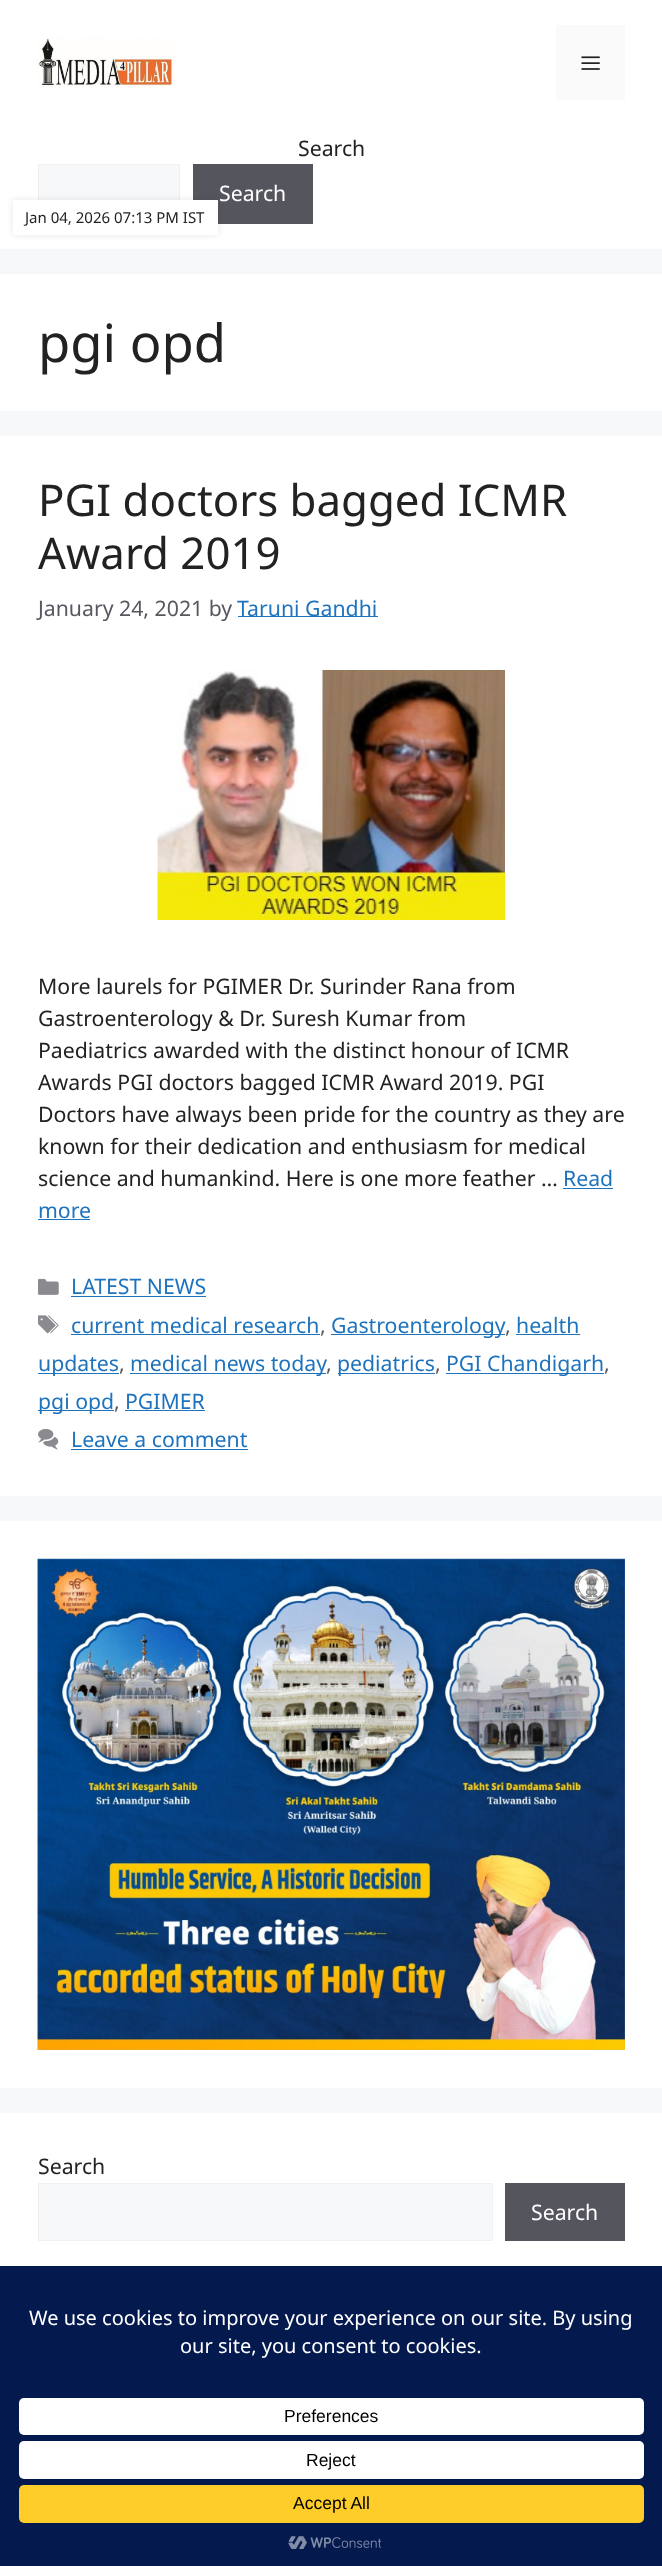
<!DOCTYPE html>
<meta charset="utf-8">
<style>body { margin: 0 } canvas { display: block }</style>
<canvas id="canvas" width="662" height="2566"></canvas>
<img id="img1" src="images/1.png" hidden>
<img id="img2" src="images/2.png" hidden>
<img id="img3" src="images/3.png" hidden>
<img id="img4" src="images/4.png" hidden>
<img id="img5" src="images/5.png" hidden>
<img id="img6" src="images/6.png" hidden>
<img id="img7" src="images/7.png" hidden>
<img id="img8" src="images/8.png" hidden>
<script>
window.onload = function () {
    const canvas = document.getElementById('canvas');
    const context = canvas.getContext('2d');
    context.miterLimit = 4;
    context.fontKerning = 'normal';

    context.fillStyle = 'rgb(247, 248, 249)';
    context.fillRect(0, 0, 662, 2566);
    context.fillStyle = 'rgb(255, 255, 255)';
    context.fillRect(0, 0, 662, 249);
    context.drawImage(document.getElementById('img1'), 37, 37, 138, 50);
    context.fillStyle = 'rgb(250, 250, 250)';
    context.fillRect(556, 25, 69, 75);
    context.drawImage(document.getElementById('img2'), 581, 56, 19, 14);
    context.fillStyle = 'rgb(247, 248, 249)';
    context.fillRect(39, 165, 140, 35);
    context.strokeStyle = 'rgb(240, 240, 240)';
    context.strokeRect(38.5, 164.5, 141, 59);
    context.fillStyle = 'rgb(85, 85, 94)';
    context.fillRect(193, 164, 120, 60);
    context.fillStyle = 'rgba(0, 0, 0, 0.1)';
    context.filter = 'blur(3px)';
    context.beginPath();
    context.rect(13, 200, 205, 35);
    context.fill();
    context.filter = 'none';
    context.fillStyle = 'rgb(255, 255, 255)';
    context.fillRect(13, 200, 205, 35);
    context.fillRect(0, 274, 662, 137);
    context.fillRect(0, 436, 662, 1060);
    context.fillStyle = 'rgb(30, 115, 190)';
    context.fillRect(238, 616, 140, 1);
    context.drawImage(document.getElementById('img3'), 157, 670, 348, 250);
    context.fillRect(563, 1188, 50, 1);
    context.fillRect(38, 1219, 52, 1);
    context.drawImage(document.getElementById('img4'), 38, 1278, 21, 17);
    context.fillRect(71, 1296, 135, 1);
    context.drawImage(document.getElementById('img5'), 38, 1315, 21, 19);
    context.fillRect(71, 1334, 249, 1);
    context.fillRect(331, 1334, 174, 1);
    context.fillRect(516, 1334, 64, 1);
    context.fillRect(38, 1373, 81, 1);
    context.fillRect(130, 1373, 196, 1);
    context.fillRect(338, 1373, 97, 1);
    context.fillRect(446, 1373, 158, 1);
    context.fillRect(38, 1410, 76, 1);
    context.fillRect(125, 1410, 80, 1);
    context.drawImage(document.getElementById('img6'), 38, 1429, 21, 21);
    context.fillRect(71, 1449, 177, 1);
    context.fillStyle = 'rgb(255, 255, 255)';
    context.fillRect(0, 1521, 662, 567);
    context.drawImage(document.getElementById('img7'), 37, 1558, 588, 492);
    context.fillRect(0, 2113, 662, 153);
    context.fillStyle = 'rgb(247, 248, 249)';
    context.beginPath();
    context.rect(38.5, 2183.5, 454, 57);
    context.fill();
    context.stroke();
    context.fillStyle = 'rgb(85, 85, 94)';
    context.fillRect(505, 2183, 120, 58);
    context.fillStyle = 'rgb(4, 25, 78)';
    context.fillRect(0, 2266, 662, 300);
    context.fillStyle = 'rgb(255, 255, 255)';
    context.beginPath();
    context.roundRect(19, 2398, 625, 37, 5);
    context.fill();
    context.beginPath();
    context.roundRect(19, 2441, 625, 38, 5);
    context.fill();
    context.fillStyle = 'rgb(255, 205, 42)';
    context.beginPath();
    context.roundRect(19, 2485, 625, 38, 5);
    context.fill();
    context.drawImage(document.getElementById('img8'), 288, 2536, 94, 13);
    context.font = '21.25px Noto Sans';
    context.fillStyle = 'rgb(34, 34, 34)';
    context.fillText('Search', 298, 156);
    context.fillStyle = 'rgb(255, 255, 255)';
    context.fillText('Search', 219, 201);
    context.font = '15px Noto Sans';
    context.fillStyle = 'rgb(34, 34, 34)';
    context.fillText('Jan 04, 2026 07:13 PM IST', 25, 223);
    context.font = '52.5px Noto Sans';
    context.fillText('pgi opd', 38, 362);
    context.font = '43.75px Noto Sans';
    context.fillText('PGI doctors bagged ICMR', 38, 516);
    context.fillText('Award 2019', 38, 569);
    context.font = '21.25px Noto Sans';
    context.fillStyle = 'rgb(87, 87, 96)';
    context.fillText('January 24, 2021 by', 38, 616);
    context.fillStyle = 'rgb(30, 115, 190)';
    context.fillText('Taruni Gandhi', 237, 616);
    context.fillStyle = 'rgb(34, 34, 34)';
    context.fillText('More laurels for PGIMER Dr. Surinder Rana from', 38, 994);
    context.fillText('Gastroenterology & Dr. Suresh Kumar from', 38, 1026);
    context.fillText('Paediatrics awarded with the distinct honour of ICMR', 38, 1058);
    context.fillText('Awards PGI doctors bagged ICMR Award 2019. PGI', 38, 1090);
    context.fillText('Doctors have always been pride for the country as they are', 38, 1122);
    context.fillText('known for their dedication and enthusiasm for medical', 38, 1154);
    context.fillText('science and humankind. Here is one more feather …', 38, 1186);
    context.fillStyle = 'rgb(30, 115, 190)';
    context.fillText('Read', 563, 1186);
    context.fillText('more', 38, 1218);
    context.fillText('LATEST NEWS', 71, 1294);
    context.fillText('current medical research', 71, 1333);
    context.fillStyle = 'rgb(87, 87, 96)';
    context.fillText(',', 320, 1333);
    context.fillStyle = 'rgb(30, 115, 190)';
    context.fillText('Gastroenterology', 331, 1333);
    context.fillStyle = 'rgb(87, 87, 96)';
    context.fillText(',', 505, 1333);
    context.fillStyle = 'rgb(30, 115, 190)';
    context.fillText('health', 516, 1333);
    context.fillText('updates', 38, 1371);
    context.fillStyle = 'rgb(87, 87, 96)';
    context.fillText(',', 119, 1371);
    context.fillStyle = 'rgb(30, 115, 190)';
    context.fillText('medical news today', 130, 1371);
    context.fillStyle = 'rgb(87, 87, 96)';
    context.fillText(',', 326, 1371);
    context.fillStyle = 'rgb(30, 115, 190)';
    context.fillText('pediatrics', 337, 1371);
    context.fillStyle = 'rgb(87, 87, 96)';
    context.fillText(',', 435, 1371);
    context.fillStyle = 'rgb(30, 115, 190)';
    context.fillText('PGI Chandigarh', 446, 1371);
    context.fillStyle = 'rgb(87, 87, 96)';
    context.fillText(',', 604, 1371);
    context.fillStyle = 'rgb(30, 115, 190)';
    context.fillText('pgi opd', 38, 1409);
    context.fillStyle = 'rgb(87, 87, 96)';
    context.fillText(',', 114, 1409);
    context.fillStyle = 'rgb(30, 115, 190)';
    context.fillText('PGIMER', 125, 1409);
    context.fillText('Leave a comment', 71, 1447);
    context.fillStyle = 'rgb(34, 34, 34)';
    context.fillText('Search', 38, 2174);
    context.fillStyle = 'rgb(255, 255, 255)';
    context.fillText('Search', 531, 2220);
    context.font = '20px Noto Sans';
    context.fillText('We use cookies to improve your experience on our site. By using', 29, 2325);
    context.fillText('our site, you consent to cookies.', 180, 2353);
    context.font = '17.5px Liberation Sans';
    context.fillStyle = 'rgb(0, 0, 0)';
    context.fillText('Preferences', 284, 2422);
    context.fillText('Reject', 306, 2466);
    context.fillText('Accept All', 293, 2509);
};
</script>
